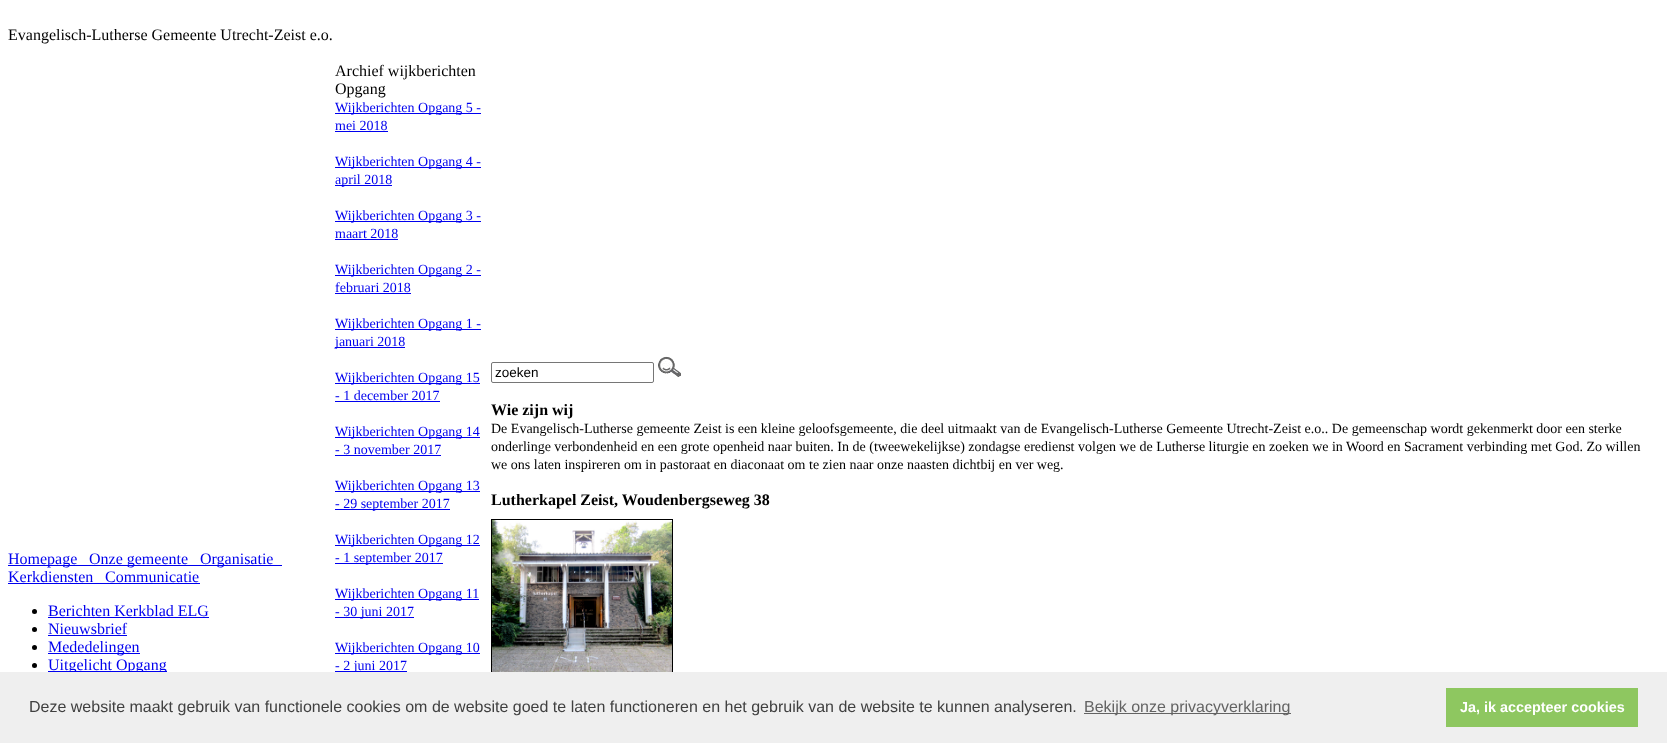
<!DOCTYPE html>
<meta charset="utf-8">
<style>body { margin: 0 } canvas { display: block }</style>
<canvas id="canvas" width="1667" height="743"></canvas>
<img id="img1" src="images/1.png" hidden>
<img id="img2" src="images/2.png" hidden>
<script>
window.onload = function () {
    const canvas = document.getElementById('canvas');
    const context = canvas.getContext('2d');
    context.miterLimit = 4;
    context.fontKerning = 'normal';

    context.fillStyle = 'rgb(255, 255, 255)';
    context.fillRect(0, 0, 1667, 743);
    context.fillStyle = 'rgb(0, 0, 238)';
    context.fillRect(335, 113, 146, 1);
    context.fillRect(335, 131, 53, 1);
    context.fillRect(335, 167, 146, 1);
    context.fillRect(335, 185, 57, 1);
    context.fillRect(335, 221, 146, 1);
    context.fillRect(335, 239, 63, 1);
    context.fillRect(335, 275, 146, 1);
    context.fillRect(335, 293, 76, 1);
    context.fillRect(335, 329, 146, 1);
    context.fillRect(335, 347, 70, 1);
    context.fillRect(335, 383, 145, 1);
    context.fillRect(335, 401, 105, 1);
    context.fillRect(335, 437, 145, 1);
    context.fillRect(335, 455, 106, 1);
    context.fillRect(335, 491, 145, 1);
    context.fillRect(335, 509, 115, 1);
    context.fillRect(335, 545, 145, 1);
    context.fillRect(335, 563, 108, 1);
    context.fillRect(335, 599, 144, 1);
    context.fillRect(335, 617, 79, 1);
    context.fillRect(335, 653, 145, 1);
    context.fillRect(335, 671, 72, 1);
    context.beginPath();
    context.roundRect(491.5, 362.5, 162, 20, 1.5);
    context.strokeStyle = 'rgb(118, 118, 118)';
    context.stroke();
    context.drawImage(document.getElementById('img1'), 658, 356, 23, 21);
    context.strokeStyle = 'rgb(0, 0, 0)';
    context.strokeRect(491.5, 519.5, 181, 153);
    context.drawImage(document.getElementById('img2'), 492, 520, 180, 152);
    context.fillRect(8, 565, 274, 1);
    context.fillRect(8, 583, 192, 1);
    context.fillStyle = 'rgb(0, 0, 0)';
    context.beginPath();
    context.arc(34.5, 611.5, 2.5, 0, 2 * Math.PI);
    context.fill();
    context.fillStyle = 'rgb(0, 0, 238)';
    context.fillRect(48, 617, 161, 1);
    context.fillStyle = 'rgb(0, 0, 0)';
    context.beginPath();
    context.arc(34.5, 629.5, 2.5, 0, 2 * Math.PI);
    context.fill();
    context.fillStyle = 'rgb(0, 0, 238)';
    context.fillRect(48, 635, 79, 1);
    context.fillStyle = 'rgb(0, 0, 0)';
    context.beginPath();
    context.arc(34.5, 647.5, 2.5, 0, 2 * Math.PI);
    context.fill();
    context.fillStyle = 'rgb(0, 0, 238)';
    context.fillRect(48, 653, 92, 1);
    context.fillStyle = 'rgb(0, 0, 0)';
    context.beginPath();
    context.arc(34.5, 665.5, 2.5, 0, 2 * Math.PI);
    context.fill();
    context.fillStyle = 'rgb(0, 0, 238)';
    context.fillRect(48, 671, 119, 1);
    context.font = '16px Liberation Serif';
    context.fillStyle = 'rgb(0, 0, 0)';
    context.fillText('Evangelisch-Lutherse Gemeente Utrecht-Zeist e.o.', 8, 40);
    context.fillText('Archief wijkberichten', 335, 76);
    context.fillText('Opgang', 335, 94);
    context.font = '14px Liberation Serif';
    context.fillStyle = 'rgb(0, 0, 238)';
    context.fillText('Wijkberichten Opgang 5 -', 335, 112);
    context.fillText('mei 2018', 335, 130);
    context.fillText('Wijkberichten Opgang 4 -', 335, 166);
    context.fillText('april 2018', 335, 184);
    context.fillText('Wijkberichten Opgang 3 -', 335, 220);
    context.fillText('maart 2018', 335, 238);
    context.fillText('Wijkberichten Opgang 2 -', 335, 274);
    context.fillText('februari 2018', 335, 292);
    context.fillText('Wijkberichten Opgang 1 -', 335, 328);
    context.fillText('januari 2018', 335, 346);
    context.fillText('Wijkberichten Opgang 15', 335, 382);
    context.fillText('- 1 december 2017', 335, 400);
    context.fillText('Wijkberichten Opgang 14', 335, 436);
    context.fillText('- 3 november 2017', 335, 454);
    context.fillText('Wijkberichten Opgang 13', 335, 490);
    context.fillText('- 29 september 2017', 335, 508);
    context.fillText('Wijkberichten Opgang 12', 335, 544);
    context.fillText('- 1 september 2017', 335, 562);
    context.fillText('Wijkberichten Opgang 11', 335, 598);
    context.fillText('- 30 juni 2017', 335, 616);
    context.fillText('Wijkberichten Opgang 10', 335, 652);
    context.fillText('- 2 juni 2017', 335, 670);
    context.font = '13.5px Liberation Sans';
    context.fillStyle = 'rgb(0, 0, 0)';
    context.fillText('zoeken', 495, 377);
    context.font = 'bold 16px Liberation Serif';
    context.fillText('Wie zijn wij', 491, 415);
    context.font = '14px Liberation Serif';
    context.fillText('De Evangelisch-Lutherse gemeente Zeist is een kleine geloofsgemeente, die deel uitmaakt van de Evangelisch-Lutherse Gemeente Utrecht-Zeist e.o.. De gemeenschap wordt gekenmerkt door een sterke', 491, 433);
    context.fillText('onderlinge verbondenheid en een grote openheid naar buiten. In de (tweewekelijkse) zondagse eredienst volgen we de Lutherse liturgie en zoeken we in Woord en Sacrament verbinding met God. Zo willen', 491, 451);
    context.fillText('we ons laten inspireren om in pastoraat en diaconaat om te zien naar onze naasten dichtbij en ver weg.', 491, 469);
    context.font = 'bold 16px Liberation Serif';
    context.fillText('Lutherkapel Zeist, Woudenbergseweg 38', 491, 505);
    context.font = '16px Liberation Serif';
    context.fillStyle = 'rgb(0, 0, 238)';
    context.fillText('Homepage', 8, 564);
    context.fillText('Onze gemeente', 89, 564);
    context.fillText('Organisatie', 200, 564);
    context.fillText('Kerkdiensten', 8, 582);
    context.fillText('Communicatie', 105, 582);
    context.fillText('Berichten Kerkblad ELG', 48, 616);
    context.fillText('Nieuwsbrief', 48, 634);
    context.fillText('Mededelingen', 48, 652);
    context.fillText('Uitgelicht Opgang', 48, 670);
    context.fillStyle = 'rgb(239, 239, 239)';
    context.fillRect(0, 672, 1667, 71);
    context.font = '16px Liberation Sans';
    context.fillStyle = 'rgb(64, 64, 64)';
    context.fillText('Deze website maakt gebruik van functionele cookies om de website goed te laten functioneren en het gebruik van de website te kunnen analyseren.', 29, 712);
    context.fillStyle = 'rgb(99, 99, 99)';
    context.fillRect(1084, 713, 207, 1);
    context.fillText('Bekijk onze privacyverklaring', 1084, 712);
    context.fillStyle = 'rgb(142, 199, 96)';
    context.fillRect(1446, 688, 192, 39);
    context.font = 'bold 14.4px Liberation Sans';
    context.fillStyle = 'rgb(255, 255, 255)';
    context.fillText('Ja, ik accepteer cookies', 1460, 712);
};
</script>
